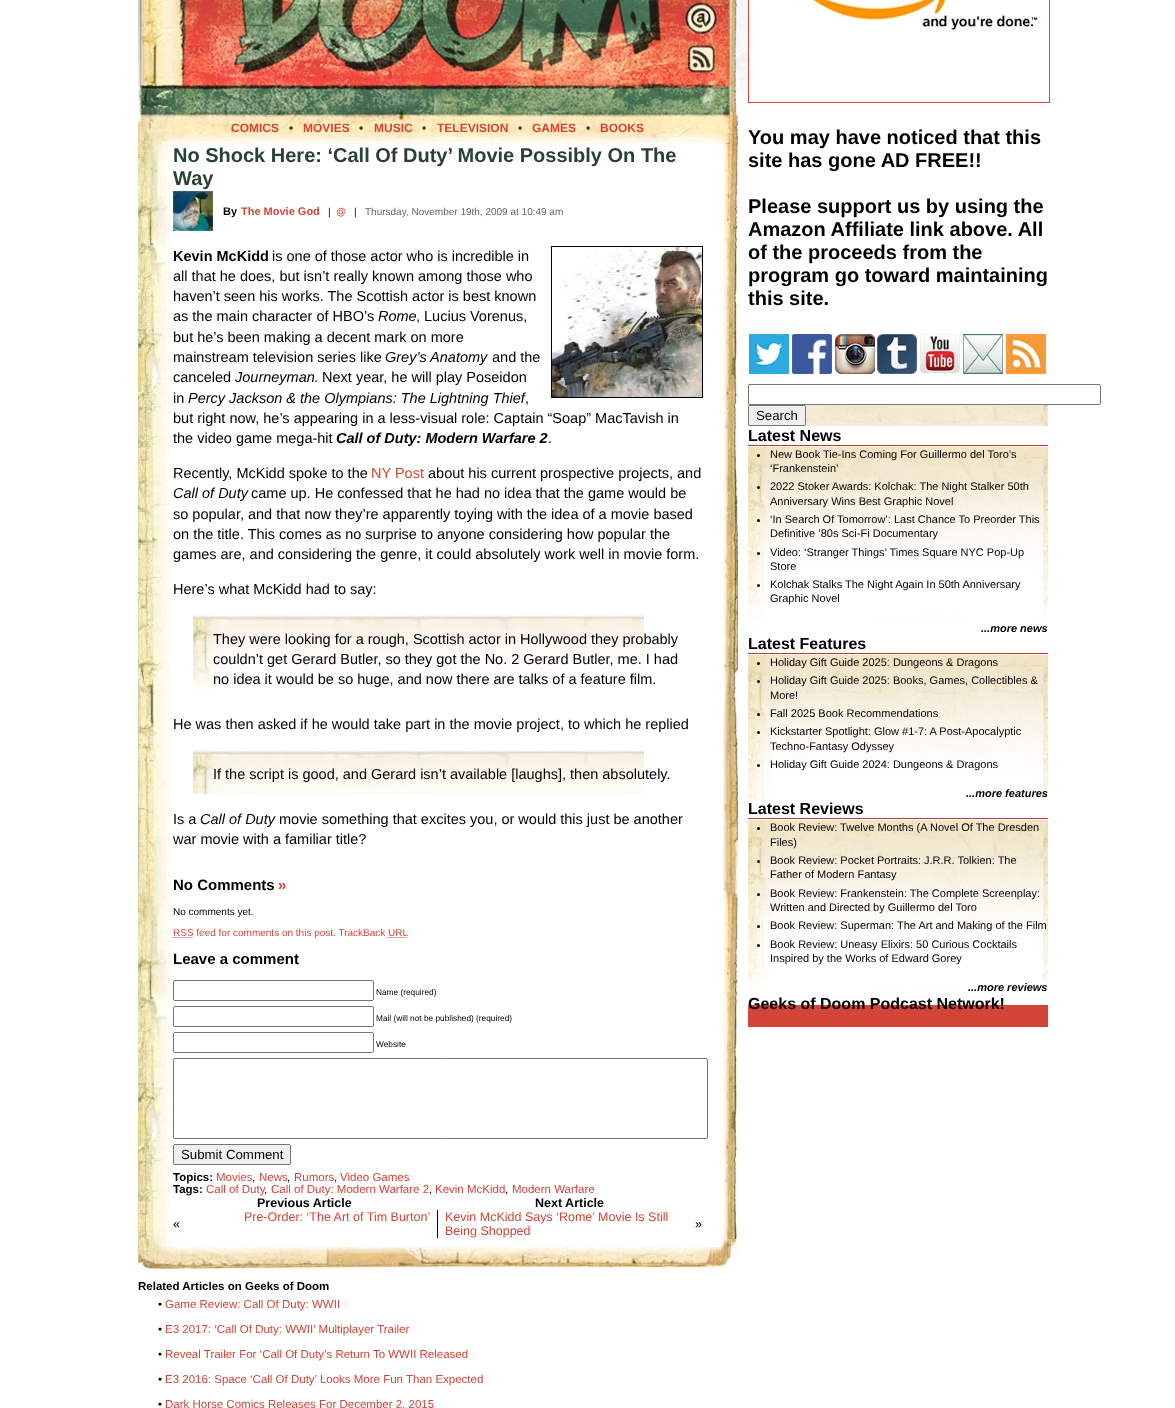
<!DOCTYPE html>
<meta charset="utf-8">
<style>body { margin: 0 } canvas { display: block }</style>
<canvas id="canvas" width="1175" height="1408"></canvas>
<img id="img1" src="images/1.png" hidden>
<img id="img2" src="images/2.png" hidden>
<img id="img3" src="images/3.png" hidden>
<img id="img4" src="images/4.png" hidden>
<img id="img5" src="images/5.png" hidden>
<img id="img6" src="images/6.png" hidden>
<img id="img7" src="images/7.png" hidden>
<img id="img8" src="images/8.png" hidden>
<img id="img9" src="images/9.png" hidden>
<img id="img10" src="images/10.png" hidden>
<img id="img11" src="images/11.png" hidden>
<img id="img12" src="images/12.png" hidden>
<img id="img13" src="images/13.png" hidden>
<img id="img14" src="images/14.png" hidden>
<img id="img15" src="images/15.png" hidden>
<img id="img16" src="images/16.png" hidden>
<img id="img17" src="images/17.png" hidden>
<img id="img18" src="images/18.png" hidden>
<img id="img19" src="images/19.png" hidden>
<img id="img20" src="images/20.png" hidden>
<img id="img21" src="images/21.png" hidden>
<img id="img22" src="images/22.png" hidden>
<img id="img23" src="images/23.png" hidden>
<img id="img24" src="images/24.png" hidden>
<script>
window.onload = function () {
    const canvas = document.getElementById('canvas');
    const context = canvas.getContext('2d');
    context.miterLimit = 4;
    context.fontKerning = 'normal';

    context.fillStyle = 'rgb(255, 255, 255)';
    context.fillRect(0, 0, 1175, 1408);
    context.drawImage(document.getElementById('img1'), 138, 0, 610, 100);
    context.drawImage(document.getElementById('img2'), 138, 0, 5, 121);
    context.drawImage(document.getElementById('img3'), 143, 0, 590, 121);
    context.drawImage(document.getElementById('img4'), 733, 0, 5, 121);
    context.drawImage(document.getElementById('img5'), 138, 121, 600, 23);
    context.drawImage(document.getElementById('img6'), 138, 144, 35, 1095);
    context.drawImage(document.getElementById('img7'), 173, 191, 40, 40);
    context.strokeStyle = 'rgb(0, 0, 0)';
    context.strokeRect(551.5, 246.5, 151, 151);
    context.drawImage(document.getElementById('img8'), 552, 247, 150, 150);
    context.drawImage(document.getElementById('img9'), 193, 614, 451, 77);
    context.drawImage(document.getElementById('img10'), 193, 749, 451, 45);
    context.beginPath();
    context.moveTo(172.5, 937.5);
    context.lineTo(193, 937.5);
    context.strokeStyle = 'rgb(210, 69, 56)';
    context.setLineDash([1, 1]);
    context.stroke();
    context.beginPath();
    context.moveTo(387.5, 937.5);
    context.lineTo(407.5, 937.5);
    context.stroke();
    context.beginPath();
    context.roundRect(173.5, 980.5, 200, 20, 1.5);
    context.strokeStyle = 'rgb(118, 118, 118)';
    context.setLineDash([]);
    context.stroke();
    context.beginPath();
    context.roundRect(173.5, 1006.5, 200, 20, 1.5);
    context.stroke();
    context.beginPath();
    context.roundRect(173.5, 1032.5, 200, 20, 1.5);
    context.stroke();
    context.beginPath();
    context.roundRect(173.5, 1058.5, 534, 80, 1.5);
    context.stroke();
    context.fillStyle = 'rgb(239, 239, 239)';
    context.beginPath();
    context.roundRect(173.5, 1144.5, 117, 20, 1.5);
    context.fill();
    context.stroke();
    context.fillStyle = 'rgb(0, 0, 0)';
    context.fillRect(437, 1210, 1, 28);
    context.drawImage(document.getElementById('img11'), 719, 144, 19, 1095);
    context.drawImage(document.getElementById('img12'), 138, 1239, 600, 30);
    context.strokeStyle = 'rgb(210, 69, 56)';
    context.strokeRect(748.5, -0.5, 301, 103);
    context.drawImage(document.getElementById('img13'), 749, 0, 292, 100);
    context.drawImage(document.getElementById('img14'), 749, 334, 40, 40);
    context.drawImage(document.getElementById('img15'), 792, 334, 40, 40);
    context.drawImage(document.getElementById('img16'), 835, 334, 40, 40);
    context.drawImage(document.getElementById('img17'), 877, 334, 40, 40);
    context.drawImage(document.getElementById('img18'), 920, 334, 40, 40);
    context.drawImage(document.getElementById('img19'), 963, 334, 40, 40);
    context.drawImage(document.getElementById('img20'), 1006, 334, 40, 40);
    context.drawImage(document.getElementById('img21'), 748, 384, 300, 42);
    context.fillStyle = 'rgb(255, 255, 255)';
    context.beginPath();
    context.roundRect(748.5, 384.5, 352, 20, 1.5);
    context.fill();
    context.strokeStyle = 'rgb(118, 118, 118)';
    context.stroke();
    context.fillStyle = 'rgb(239, 239, 239)';
    context.beginPath();
    context.roundRect(748.5, 405.5, 57, 20, 1.5);
    context.fill();
    context.stroke();
    context.fillStyle = 'rgb(204, 51, 51)';
    context.fillRect(748, 445, 300, 1);
    context.drawImage(document.getElementById('img22'), 748, 447, 300, 176);
    context.fillStyle = 'rgb(0, 0, 0)';
    context.beginPath();
    context.arc(758.5, 455.5, 1.5, 0, 2 * Math.PI);
    context.fill();
    context.beginPath();
    context.arc(758.5, 487.5, 1.5, 0, 2 * Math.PI);
    context.fill();
    context.beginPath();
    context.arc(758.5, 520.5, 1.5, 0, 2 * Math.PI);
    context.fill();
    context.beginPath();
    context.arc(758.5, 553.5, 1.5, 0, 2 * Math.PI);
    context.fill();
    context.beginPath();
    context.arc(758.5, 585.5, 1.5, 0, 2 * Math.PI);
    context.fill();
    context.fillStyle = 'rgb(204, 51, 51)';
    context.fillRect(748, 653, 300, 1);
    context.drawImage(document.getElementById('img23'), 748, 655, 300, 145);
    context.fillStyle = 'rgb(0, 0, 0)';
    context.beginPath();
    context.arc(758.5, 663.5, 1.5, 0, 2 * Math.PI);
    context.fill();
    context.beginPath();
    context.arc(758.5, 681.5, 1.5, 0, 2 * Math.PI);
    context.fill();
    context.beginPath();
    context.arc(758.5, 714.5, 1.5, 0, 2 * Math.PI);
    context.fill();
    context.beginPath();
    context.arc(758.5, 732.5, 1.5, 0, 2 * Math.PI);
    context.fill();
    context.beginPath();
    context.arc(758.5, 765.5, 1.5, 0, 2 * Math.PI);
    context.fill();
    context.fillStyle = 'rgb(204, 51, 51)';
    context.fillRect(748, 818, 300, 1);
    context.drawImage(document.getElementById('img24'), 748, 820, 300, 174);
    context.fillStyle = 'rgb(0, 0, 0)';
    context.beginPath();
    context.arc(758.5, 828.5, 1.5, 0, 2 * Math.PI);
    context.fill();
    context.beginPath();
    context.arc(758.5, 861.5, 1.5, 0, 2 * Math.PI);
    context.fill();
    context.beginPath();
    context.arc(758.5, 894.5, 1.5, 0, 2 * Math.PI);
    context.fill();
    context.beginPath();
    context.arc(758.5, 926.5, 1.5, 0, 2 * Math.PI);
    context.fill();
    context.beginPath();
    context.arc(758.5, 945.5, 1.5, 0, 2 * Math.PI);
    context.fill();
    context.fillStyle = 'rgb(210, 69, 56)';
    context.fillRect(748, 1005, 300, 22);
    context.font = 'bold 12px Liberation Sans';
    context.fillText('COMICS', 231, 132);
    context.fillStyle = 'rgb(40, 66, 50)';
    context.fillText('•', 289, 132);
    context.fillStyle = 'rgb(210, 69, 56)';
    context.fillText('MOVIES', 303, 132);
    context.fillStyle = 'rgb(40, 66, 50)';
    context.fillText('•', 359, 132);
    context.fillStyle = 'rgb(210, 69, 56)';
    context.fillText('MUSIC', 374, 132);
    context.fillStyle = 'rgb(40, 66, 50)';
    context.fillText('•', 422, 132);
    context.fillStyle = 'rgb(210, 69, 56)';
    context.fillText('TELEVISION', 437, 132);
    context.fillStyle = 'rgb(40, 66, 50)';
    context.fillText('•', 518, 132);
    context.fillStyle = 'rgb(210, 69, 56)';
    context.fillText('GAMES', 532, 132);
    context.fillStyle = 'rgb(40, 66, 50)';
    context.fillText('•', 586, 132);
    context.fillStyle = 'rgb(210, 69, 56)';
    context.fillText('BOOKS', 600, 132);
    context.font = 'bold 20px Liberation Sans';
    context.fillStyle = 'rgb(40, 66, 50)';
    context.fillText('No Shock Here: ‘Call Of Duty’ Movie Possibly On The', 173, 162);
    context.fillText('Way', 173, 185);
    context.font = 'bold 11px Liberation Sans';
    context.fillStyle = 'rgb(0, 0, 0)';
    context.fillText('By', 223, 215);
    context.fillStyle = 'rgb(210, 69, 56)';
    context.fillText('The Movie God', 241, 215);
    context.font = '10px Liberation Sans';
    context.fillStyle = 'rgb(0, 0, 0)';
    context.fillText('|', 328, 215);
    context.fillStyle = 'rgb(210, 69, 56)';
    context.fillText('@', 336, 215);
    context.fillStyle = 'rgb(0, 0, 0)';
    context.fillText('|', 354, 215);
    context.fillStyle = 'rgb(102, 102, 102)';
    context.fillText('Thursday, November 19th, 2009 at 10:49 am', 365, 215);
    context.font = 'bold 14.5px Liberation Sans';
    context.fillStyle = 'rgb(0, 0, 0)';
    context.fillText('Kevin McKidd', 173, 261);
    context.font = '14.5px Liberation Sans';
    context.fillText('is one of those actor who is incredible in', 272, 261);
    context.fillText('all that he does, but isn’t really known among those who', 173, 281);
    context.fillText('haven’t seen his works. The Scottish actor is best known', 173, 301);
    context.fillText('as the main character of HBO’s', 173, 321);
    context.font = 'italic 14.5px Liberation Sans';
    context.fillText('Rome', 378, 321);
    context.font = '14.5px Liberation Sans';
    context.fillText(', Lucius Vorenus,', 416, 321);
    context.fillText('but he’s been making a decent mark on more', 173, 342);
    context.fillText('mainstream television series like', 173, 362);
    context.font = 'italic 14.5px Liberation Sans';
    context.fillText('Grey’s Anatomy', 385, 362);
    context.font = '14.5px Liberation Sans';
    context.fillText('and the', 492, 362);
    context.fillText('canceled', 173, 382);
    context.font = 'italic 14.5px Liberation Sans';
    context.fillText('Journeyman', 235, 382);
    context.font = '14.5px Liberation Sans';
    context.fillText('. Next year, he will play Poseidon', 314, 382);
    context.fillText('in', 173, 403);
    context.font = 'italic 14.5px Liberation Sans';
    context.fillText('Percy Jackson & the Olympians: The Lightning Thief', 188, 403);
    context.font = '14.5px Liberation Sans';
    context.fillText(',', 525, 403);
    context.fillText('but right now, he’s appearing in a less-visual role: Captain “Soap” MacTavish in', 173, 423);
    context.fillText('the video game mega-hit', 173, 443);
    context.font = 'italic bold 14.5px Liberation Sans';
    context.fillText('Call of Duty: Modern Warfare 2', 336, 443);
    context.font = '14.5px Liberation Sans';
    context.fillText('.', 548, 443);
    context.fillText('Recently, McKidd spoke to the', 173, 478);
    context.fillStyle = 'rgb(210, 69, 56)';
    context.fillText('NY Post', 371, 478);
    context.fillStyle = 'rgb(0, 0, 0)';
    context.fillText('about his current prospective projects, and', 428, 478);
    context.font = 'italic 14.5px Liberation Sans';
    context.fillText('Call of Duty', 173, 498);
    context.font = '14.5px Liberation Sans';
    context.fillText('came up. He confessed that he had no idea that the game would be', 251, 498);
    context.fillText('so popular, and that now they’re apparently toying with the idea of a movie based', 173, 519);
    context.fillText('on the title. This comes as no surprise to anyone considering how popular the', 173, 539);
    context.fillText('games are, and considering the genre, it could absolutely work well in movie form.', 173, 559);
    context.fillText('Here’s what McKidd had to say:', 173, 594);
    context.fillText('They were looking for a rough, Scottish actor in Hollywood they probably', 213, 644);
    context.fillText('couldn’t get Gerard Butler, so they got the No. 2 Gerard Butler, me. I had', 213, 664);
    context.fillText('no idea it would be so huge, and now there are talks of a feature film.', 213, 684);
    context.fillText('He was then asked if he would take part in the movie project, to which he replied', 173, 729);
    context.fillText('If the script is good, and Gerard isn’t available [laughs], then absolutely.', 213, 779);
    context.fillText('Is a', 173, 824);
    context.font = 'italic 14.5px Liberation Sans';
    context.fillText('Call of Duty', 200, 824);
    context.font = '14.5px Liberation Sans';
    context.fillText('movie something that excites you, or would this just be another', 279, 824);
    context.fillText('war movie with a familiar title?', 173, 844);
    context.font = 'bold 15px Liberation Sans';
    context.fillText('No Comments', 173, 890);
    context.fillStyle = 'rgb(210, 69, 56)';
    context.fillText('»', 278, 890);
    context.font = '10px Liberation Sans';
    context.fillStyle = 'rgb(0, 0, 0)';
    context.fillText('No comments yet.', 173, 915);
    context.fillStyle = 'rgb(210, 69, 56)';
    context.fillText('RSS feed for comments on this post. TrackBack URL', 173, 936);
    context.font = 'bold 15px Liberation Sans';
    context.fillStyle = 'rgb(0, 0, 0)';
    context.fillText('Leave a comment', 173, 964);
    context.font = '8.3px Liberation Sans';
    context.fillText('Name (required)', 376, 995);
    context.fillText('Mail (will not be published) (required)', 376, 1021);
    context.fillText('Website', 376, 1047);
    context.font = '13.25px Liberation Sans';
    context.fillText('Submit Comment', 181, 1159);
    context.font = 'bold 11.5px Liberation Sans';
    context.fillText('Topics:', 173, 1181);
    context.font = '11.5px Liberation Sans';
    context.fillStyle = 'rgb(210, 69, 56)';
    context.fillText('Movies', 216, 1181);
    context.fillStyle = 'rgb(0, 0, 0)';
    context.fillText(',', 252, 1181);
    context.fillStyle = 'rgb(210, 69, 56)';
    context.fillText('News', 259, 1181);
    context.fillStyle = 'rgb(0, 0, 0)';
    context.fillText(',', 287, 1181);
    context.fillStyle = 'rgb(210, 69, 56)';
    context.fillText('Rumors', 294, 1181);
    context.fillStyle = 'rgb(0, 0, 0)';
    context.fillText(',', 334, 1181);
    context.fillStyle = 'rgb(210, 69, 56)';
    context.fillText('Video Games', 340, 1181);
    context.font = 'bold 11.5px Liberation Sans';
    context.fillStyle = 'rgb(0, 0, 0)';
    context.fillText('Tags:', 173, 1193);
    context.font = '11.5px Liberation Sans';
    context.fillStyle = 'rgb(210, 69, 56)';
    context.fillText('Call of Duty', 206, 1193);
    context.fillStyle = 'rgb(0, 0, 0)';
    context.fillText(',', 264, 1193);
    context.fillStyle = 'rgb(210, 69, 56)';
    context.fillText('Call of Duty: Modern Warfare 2', 271, 1193);
    context.fillStyle = 'rgb(0, 0, 0)';
    context.fillText(',', 429, 1193);
    context.fillStyle = 'rgb(210, 69, 56)';
    context.fillText('Kevin McKidd', 435, 1193);
    context.fillStyle = 'rgb(0, 0, 0)';
    context.fillText(',', 505, 1193);
    context.fillStyle = 'rgb(210, 69, 56)';
    context.fillText('Modern Warfare', 512, 1193);
    context.font = 'bold 12.5px Liberation Sans';
    context.fillStyle = 'rgb(0, 0, 0)';
    context.fillText('Previous Article', 257, 1207);
    context.fillText('Next Article', 535, 1207);
    context.font = '12.5px Liberation Sans';
    context.fillText('«', 173, 1228);
    context.fillStyle = 'rgb(210, 69, 56)';
    context.fillText('Pre-Order: ‘The Art of Tim Burton’', 244, 1221);
    context.fillText('Kevin McKidd Says ‘Rome’ Movie Is Still', 445, 1221);
    context.fillText('Being Shopped', 445, 1235);
    context.fillStyle = 'rgb(0, 0, 0)';
    context.fillText('»', 695, 1228);
    context.font = 'bold 11.5px Liberation Sans';
    context.fillText('Related Articles on Geeks of Doom', 138, 1290);
    context.font = '11.5px Liberation Sans';
    context.fillText('•', 158, 1308);
    context.fillStyle = 'rgb(210, 69, 56)';
    context.fillText('Game Review: Call Of Duty: WWII', 165, 1308);
    context.fillStyle = 'rgb(0, 0, 0)';
    context.fillText('•', 158, 1333);
    context.fillStyle = 'rgb(210, 69, 56)';
    context.fillText('E3 2017: ‘Call Of Duty: WWII’ Multiplayer Trailer', 165, 1333);
    context.fillStyle = 'rgb(0, 0, 0)';
    context.fillText('•', 158, 1358);
    context.fillStyle = 'rgb(210, 69, 56)';
    context.fillText('Reveal Trailer For ‘Call Of Duty’s Return To WWII Released', 165, 1358);
    context.fillStyle = 'rgb(0, 0, 0)';
    context.fillText('•', 158, 1383);
    context.fillStyle = 'rgb(210, 69, 56)';
    context.fillText('E3 2016: Space ‘Call Of Duty’ Looks More Fun Than Expected', 165, 1383);
    context.fillStyle = 'rgb(0, 0, 0)';
    context.fillText('•', 158, 1408);
    context.fillStyle = 'rgb(210, 69, 56)';
    context.fillText('Dark Horse Comics Releases For December 2, 2015', 165, 1408);
    context.font = 'bold 20px Liberation Sans';
    context.fillStyle = 'rgb(0, 0, 0)';
    context.fillText('You may have noticed that this', 748, 144);
    context.fillText('site has gone AD FREE!!', 748, 167);
    context.fillText('Please support us by using the', 748, 213);
    context.fillText('Amazon Affiliate link above. All', 748, 236);
    context.fillText('of the proceeds from the', 748, 259);
    context.fillText('program go toward maintaining', 748, 282);
    context.fillText('this site.', 748, 305);
    context.font = '13.25px Liberation Sans';
    context.fillText('Search', 756, 420);
    context.font = 'bold 16px Liberation Sans';
    context.fillText('Latest News', 748, 441);
    context.font = '11px Liberation Sans';
    context.fillText('New Book Tie-Ins Coming For Guillermo del Toro’s', 770, 458);
    context.fillText('‘Frankenstein’', 770, 472);
    context.fillText('2022 Stoker Awards: Kolchak: The Night Stalker 50th', 770, 490);
    context.fillText('Anniversary Wins Best Graphic Novel', 770, 505);
    context.fillText('‘In Search Of Tomorrow’: Last Chance To Preorder This', 770, 523);
    context.fillText('Definitive ’80s Sci-Fi Documentary', 770, 537);
    context.fillText('Video: ‘Stranger Things’ Times Square NYC Pop-Up', 770, 556);
    context.fillText('Store', 770, 570);
    context.fillText('Kolchak Stalks The Night Again In 50th Anniversary', 770, 588);
    context.fillText('Graphic Novel', 770, 602);
    context.font = 'italic bold 11px Liberation Sans';
    context.fillText('...more news', 981, 632);
    context.font = 'bold 16px Liberation Sans';
    context.fillText('Latest Features', 748, 649);
    context.font = '11px Liberation Sans';
    context.fillText('Holiday Gift Guide 2025: Dungeons & Dragons', 770, 666);
    context.fillText('Holiday Gift Guide 2025: Books, Games, Collectibles &', 770, 684);
    context.fillText('More!', 770, 699);
    context.fillText('Fall 2025 Book Recommendations', 770, 717);
    context.fillText('Kickstarter Spotlight: Glow #1-7: A Post-Apocalyptic', 770, 735);
    context.fillText('Techno-Fantasy Odyssey', 770, 750);
    context.fillText('Holiday Gift Guide 2024: Dungeons & Dragons', 770, 768);
    context.font = 'italic bold 11px Liberation Sans';
    context.fillText('...more features', 966, 797);
    context.font = 'bold 16px Liberation Sans';
    context.fillText('Latest Reviews', 748, 814);
    context.font = '11px Liberation Sans';
    context.fillText('Book Review: Twelve Months (A Novel Of The Dresden', 770, 831);
    context.fillText('Files)', 770, 846);
    context.fillText('Book Review: Pocket Portraits: J.R.R. Tolkien: The', 770, 864);
    context.fillText('Father of Modern Fantasy', 770, 878);
    context.fillText('Book Review: Frankenstein: The Complete Screenplay:', 770, 897);
    context.fillText('Written and Directed by Guillermo del Toro', 770, 911);
    context.fillText('Book Review: Superman: The Art and Making of the Film', 770, 929);
    context.fillText('Book Review: Uneasy Elixirs: 50 Curious Cocktails', 770, 948);
    context.fillText('Inspired by the Works of Edward Gorey', 770, 962);
    context.font = 'italic bold 11px Liberation Sans';
    context.fillText('...more reviews', 968, 991);
    context.font = 'bold 16px Liberation Sans';
    context.fillText('Geeks of Doom Podcast Network!', 748, 1009);
};
</script>
